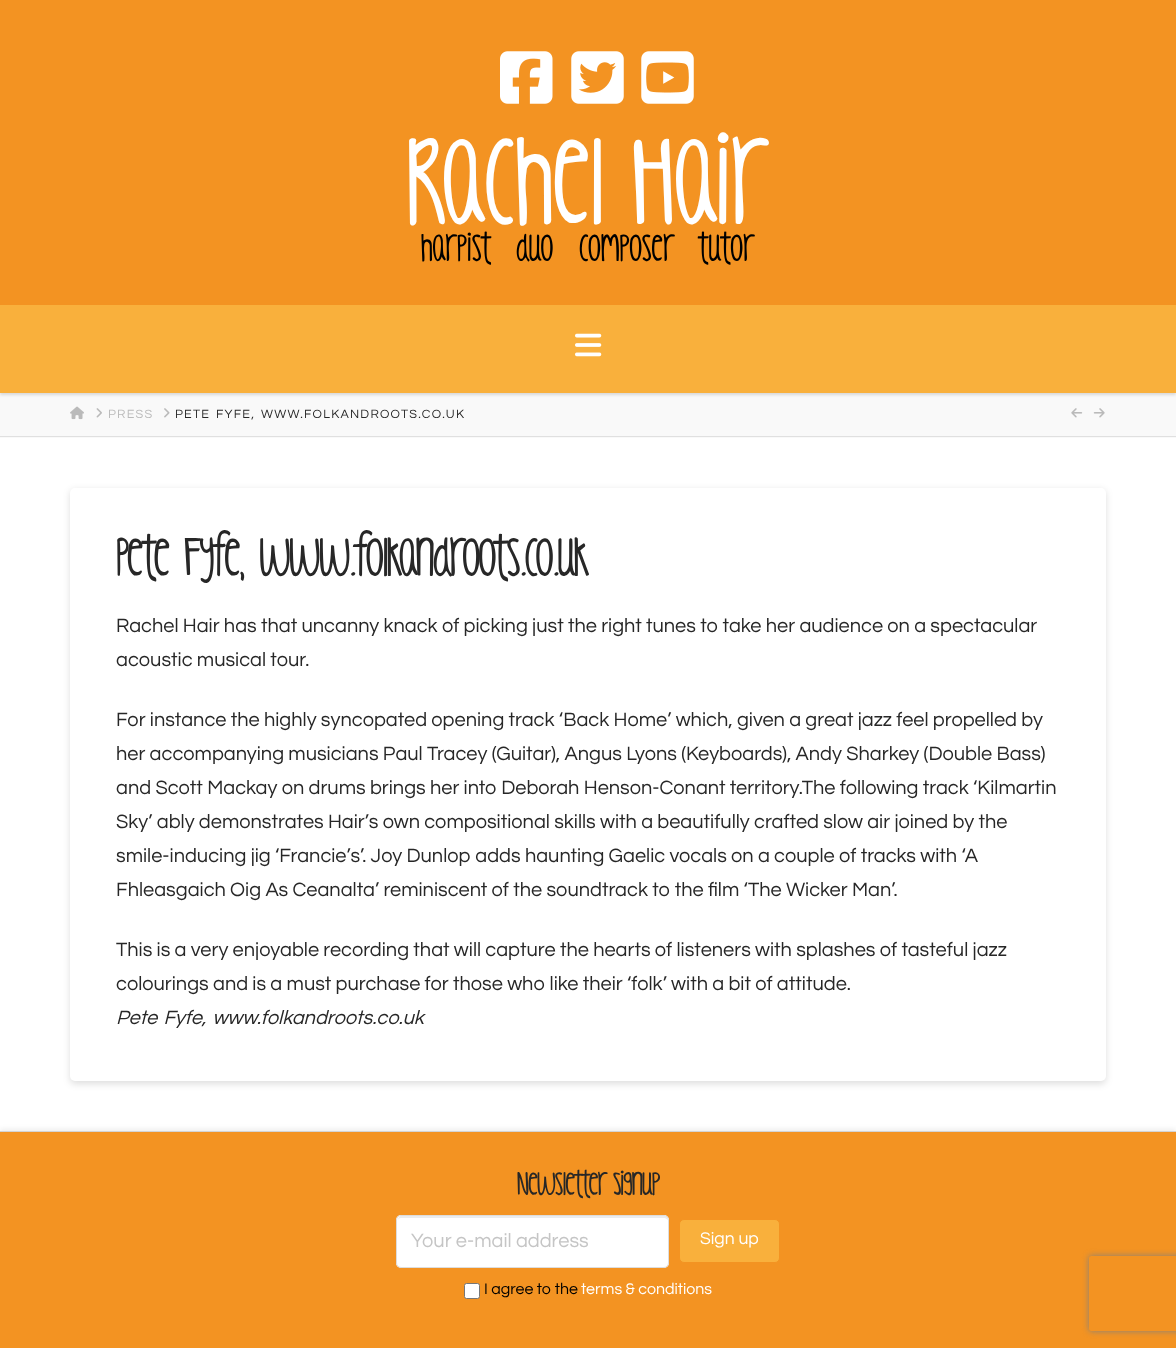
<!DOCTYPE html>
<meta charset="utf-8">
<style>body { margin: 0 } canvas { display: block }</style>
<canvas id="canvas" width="1176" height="1348"></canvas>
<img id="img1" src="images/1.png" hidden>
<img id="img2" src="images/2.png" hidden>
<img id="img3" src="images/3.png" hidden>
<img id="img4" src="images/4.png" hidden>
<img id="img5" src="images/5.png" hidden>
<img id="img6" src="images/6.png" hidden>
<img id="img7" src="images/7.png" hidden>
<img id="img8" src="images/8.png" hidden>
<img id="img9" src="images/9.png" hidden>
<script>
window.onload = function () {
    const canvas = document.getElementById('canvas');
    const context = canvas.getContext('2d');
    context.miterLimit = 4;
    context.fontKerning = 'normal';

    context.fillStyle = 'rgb(255, 255, 255)';
    context.fillRect(0, 0, 1176, 1348);
    context.fillStyle = 'rgb(243, 147, 34)';
    context.fillRect(0, 0, 1176, 305);
    context.drawImage(document.getElementById('img1'), 500, 51, 53, 53);
    context.drawImage(document.getElementById('img2'), 571, 51, 53, 53);
    context.drawImage(document.getElementById('img3'), 641, 51, 53, 53);
    context.fillStyle = 'rgb(249, 249, 249)';
    context.fillRect(0, 393, 1176, 45);
    context.fillStyle = 'rgba(0, 0, 0, 0.13)';
    context.filter = 'blur(1.5px)';
    context.beginPath();
    context.rect(0, 308, 1176, 87);
    context.fill();
    context.filter = 'none';
    context.fillStyle = 'rgb(249, 176, 60)';
    context.fillRect(0, 305, 1176, 88);
    context.drawImage(document.getElementById('img4'), 575, 333, 27, 24);
    context.fillStyle = 'rgb(224, 224, 224)';
    context.fillRect(0, 436, 1176, 1);
    context.drawImage(document.getElementById('img5'), 70, 406, 14, 14);
    context.drawImage(document.getElementById('img6'), 96, 408, 6, 10);
    context.drawImage(document.getElementById('img7'), 164, 408, 6, 10);
    context.drawImage(document.getElementById('img8'), 1071, 408, 12, 10);
    context.drawImage(document.getElementById('img9'), 1093, 408, 12, 10);
    context.fillStyle = 'rgba(0, 0, 0, 0.13)';
    context.filter = 'blur(3.5px)';
    context.beginPath();
    context.roundRect(70, 490, 1036, 594, 5);
    context.fill();
    context.filter = 'none';
    context.fillStyle = 'rgb(255, 255, 255)';
    context.beginPath();
    context.roundRect(70, 488, 1036, 593, 5);
    context.fill();
    context.fillStyle = 'rgba(0, 0, 0, 0.07)';
    context.filter = 'blur(2.5px)';
    context.beginPath();
    context.rect(0, 1129, 1176, 174);
    context.fill();
    context.filter = 'none';
    context.fillStyle = 'rgb(243, 147, 34)';
    context.fillRect(0, 1132, 1176, 216);
    context.fillStyle = 'rgb(212, 212, 212)';
    context.fillRect(0, 1131, 1176, 1);
    context.fillStyle = 'rgb(255, 255, 255)';
    context.beginPath();
    context.roundRect(396, 1215, 273, 53, 5);
    context.fill();
    context.fillStyle = 'rgb(236, 236, 236)';
    context.beginPath();
    context.moveTo(401, 1218);
    context.lineTo(665, 1218);
    context.lineTo(668, 1220);
    context.lineTo(668, 1221);
    context.bezierCurveTo(668, 1218, 667, 1216, 664, 1216);
    context.lineTo(402, 1216);
    context.bezierCurveTo(399, 1216, 398, 1218, 398, 1221);
    context.bezierCurveTo(398, 1219, 399, 1218, 401, 1218);
    context.closePath();
    context.fill();
    context.beginPath();
    context.roundRect(396.5, 1215.5, 272, 52, 4.5);
    context.strokeStyle = 'rgb(221, 221, 221)';
    context.stroke();
    context.fillStyle = 'rgb(249, 176, 60)';
    context.beginPath();
    context.roundRect(679.5, 1219.5, 100, 43, 4.5);
    context.fill();
    context.strokeStyle = 'rgb(243, 147, 34)';
    context.stroke();
    context.fillStyle = 'rgb(255, 255, 255)';
    context.beginPath();
    context.roundRect(464.5, 1283.5, 15, 15, 2);
    context.fill();
    context.strokeStyle = 'rgb(118, 118, 118)';
    context.stroke();
    context.save();
    context.beginPath();
    context.moveTo(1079, 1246);
    context.lineTo(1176, 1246);
    context.lineTo(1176, 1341);
    context.lineTo(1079, 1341);
    context.closePath();
    context.moveTo(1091.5, 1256);
    context.lineTo(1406.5, 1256);
    context.bezierCurveTo(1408, 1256, 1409, 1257, 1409, 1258.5);
    context.lineTo(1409, 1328.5);
    context.bezierCurveTo(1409, 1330, 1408, 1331, 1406.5, 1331);
    context.lineTo(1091.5, 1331);
    context.bezierCurveTo(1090, 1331, 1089, 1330, 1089, 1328.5);
    context.lineTo(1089, 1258.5);
    context.bezierCurveTo(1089, 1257, 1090, 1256, 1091.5, 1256);
    context.closePath();
    context.clip('evenodd');
    context.fillStyle = 'rgb(128, 128, 128)';
    context.filter = 'blur(3px)';
    context.beginPath();
    context.roundRect(1089, 1256, 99, 75, 2.5);
    context.fill();
    context.filter = 'none';
    context.restore();
    context.font = '112.5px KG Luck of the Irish';
    context.fillText('Rachel Hair', 407, 224);
    context.font = '35px KG Luck of the Irish';
    context.fillStyle = 'rgb(0, 0, 0)';
    context.fillText('harpist', 421, 261);
    context.fillText('duo', 516, 261);
    context.fillText('composer', 579, 261);
    context.fillText('tutor', 699, 261);
    context.letterSpacing = '1.25px';
    context.font = '12.5px Questrial';
    context.fillStyle = 'rgb(186, 186, 186)';
    context.fillText('PRESS', 108, 418);
    context.wordSpacing = '2px';
    context.fillStyle = 'rgb(39, 39, 39)';
    context.fillText('PETE FYFE, WWW.FOLKANDROOTS.CO.UK', 175, 418);
    context.letterSpacing = '-1.75px';
    context.wordSpacing = '5px';
    context.font = '50px KG Luck of the Irish';
    context.fillText('Pete Fyfe, www.folkandroots.co.uk', 116, 576);
    context.letterSpacing = '0px';
    context.wordSpacing = '0px';
    context.font = '20px Questrial';
    context.fillText('Rachel Hair has that uncanny knack of picking just the right tunes to take her audience on a spectacular', 116, 632);
    context.fillText('acoustic musical tour.', 116, 666);
    context.fillText('For instance the highly syncopated opening track ‘Back Home’ which, given a great jazz feel propelled by', 116, 726);
    context.fillText('her accompanying musicians Paul Tracey (Guitar), Angus Lyons (Keyboards), Andy Sharkey (Double Bass)', 116, 760);
    context.fillText('and Scott Mackay on drums brings her into Deborah Henson-Conant territory.The following track ‘Kilmartin', 116, 794);
    context.fillText('Sky’ ably demonstrates Hair’s own compositional skills with a beautifully crafted slow air joined by the', 116, 828);
    context.fillText('smile-inducing jig ‘Francie’s’. Joy Dunlop adds haunting Gaelic vocals on a couple of tracks with ‘A', 116, 862);
    context.fillText('Fhleasgaich Oig As Ceanalta’ reminiscent of the soundtrack to the film ‘The Wicker Man’.', 116, 896);
    context.fillText('This is a very enjoyable recording that will capture the hearts of listeners with splashes of tasteful jazz', 116, 956);
    context.fillText('colourings and is a must purchase for those who like their ‘folk’ with a bit of attitude.', 116, 990);
    context.wordSpacing = '2px';
    context.font = 'italic 20px Questrial';
    context.fillText('Pete Fyfe, www.folkandroots.co.uk', 116, 1024);
    context.letterSpacing = '-1px';
    context.wordSpacing = '0px';
    context.font = '30px KG Luck of the Irish';
    context.fillText('Newsletter Signup', 517, 1195);
    context.letterSpacing = '0px';
    context.font = '20px Questrial';
    context.fillStyle = 'rgb(197, 197, 197)';
    context.fillText('Your e-mail address', 411, 1247);
    context.font = '17.5px Questrial';
    context.fillStyle = 'rgb(255, 255, 255)';
    context.fillText('Sign up', 700, 1244);
    context.font = '16px Questrial';
    context.fillStyle = 'rgb(0, 0, 0)';
    context.fillText('I agree to the', 484, 1294);
    context.fillStyle = 'rgb(255, 255, 255)';
    context.fillText('terms & conditions', 581, 1294);
};
</script>
